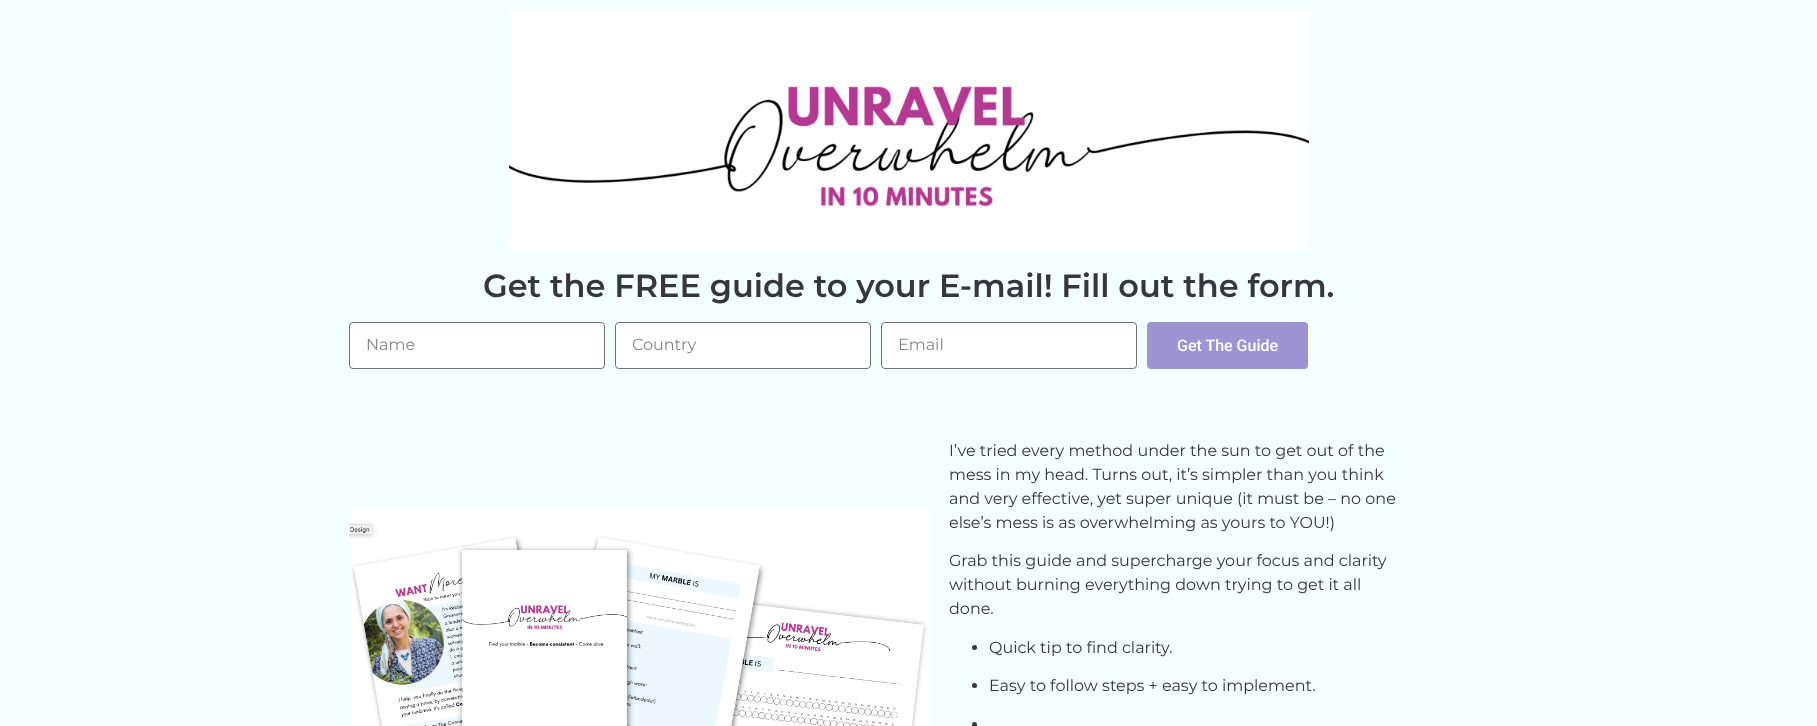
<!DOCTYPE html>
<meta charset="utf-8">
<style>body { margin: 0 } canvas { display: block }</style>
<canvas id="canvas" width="1817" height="726"></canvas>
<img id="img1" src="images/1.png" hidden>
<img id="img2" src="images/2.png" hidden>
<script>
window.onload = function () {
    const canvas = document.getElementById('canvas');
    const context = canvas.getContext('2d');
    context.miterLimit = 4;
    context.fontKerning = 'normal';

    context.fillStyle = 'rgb(244, 255, 255)';
    context.fillRect(0, 0, 1817, 726);
    context.drawImage(document.getElementById('img1'), 509, 11, 800, 239);
    context.fillStyle = 'rgb(255, 255, 255)';
    context.beginPath();
    context.roundRect(349.5, 322.5, 255, 46, 3.5);
    context.fill();
    context.strokeStyle = 'rgb(105, 114, 125)';
    context.stroke();
    context.beginPath();
    context.roundRect(615.5, 322.5, 255, 46, 3.5);
    context.fill();
    context.stroke();
    context.beginPath();
    context.roundRect(881.5, 322.5, 255, 46, 3.5);
    context.fill();
    context.stroke();
    context.fillStyle = 'rgb(158, 148, 211)';
    context.beginPath();
    context.roundRect(1147, 322, 161, 47, 4);
    context.fill();
    context.drawImage(document.getElementById('img2'), 349, 509, 580, 217);
    context.fillStyle = 'rgb(54, 54, 61)';
    context.beginPath();
    context.arc(974.5, 647.5, 2.5, 0, 2 * Math.PI);
    context.fill();
    context.beginPath();
    context.arc(974.5, 685.5, 2.5, 0, 2 * Math.PI);
    context.fill();
    context.beginPath();
    context.arc(974.5, 724.5, 2.5, 0, 2 * Math.PI);
    context.fill();
    context.font = '600 32px Montserrat';
    context.fillText('Get the FREE guide to your E-mail! Fill out the form.', 483, 297);
    context.font = '16px Montserrat';
    context.fillStyle = 'rgb(134, 134, 139)';
    context.fillText('Name', 366, 350);
    context.fillText('Country', 632, 350);
    context.fillText('Email', 898, 350);
    context.font = '500 16px Roboto';
    context.fillStyle = 'rgb(255, 255, 255)';
    context.fillText('Get The Guide', 1177, 351);
    context.font = '16px Montserrat';
    context.fillStyle = 'rgb(54, 54, 61)';
    context.fillText('I’ve tried every method under the sun to get out of the', 949, 456);
    context.fillText('mess in my head. Turns out, it’s simpler than you think', 949, 480);
    context.fillText('and very effective, yet super unique (it must be – no one', 949, 504);
    context.fillText('else’s mess is as overwhelming as yours to YOU!)', 949, 528);
    context.fillText('Grab this guide and supercharge your focus and clarity', 949, 566);
    context.fillText('without burning everything down trying to get it all', 949, 590);
    context.fillText('done.', 949, 614);
    context.fillText('Quick tip to find clarity.', 989, 653);
    context.fillText('Easy to follow steps + easy to implement.', 989, 691);
};
</script>
